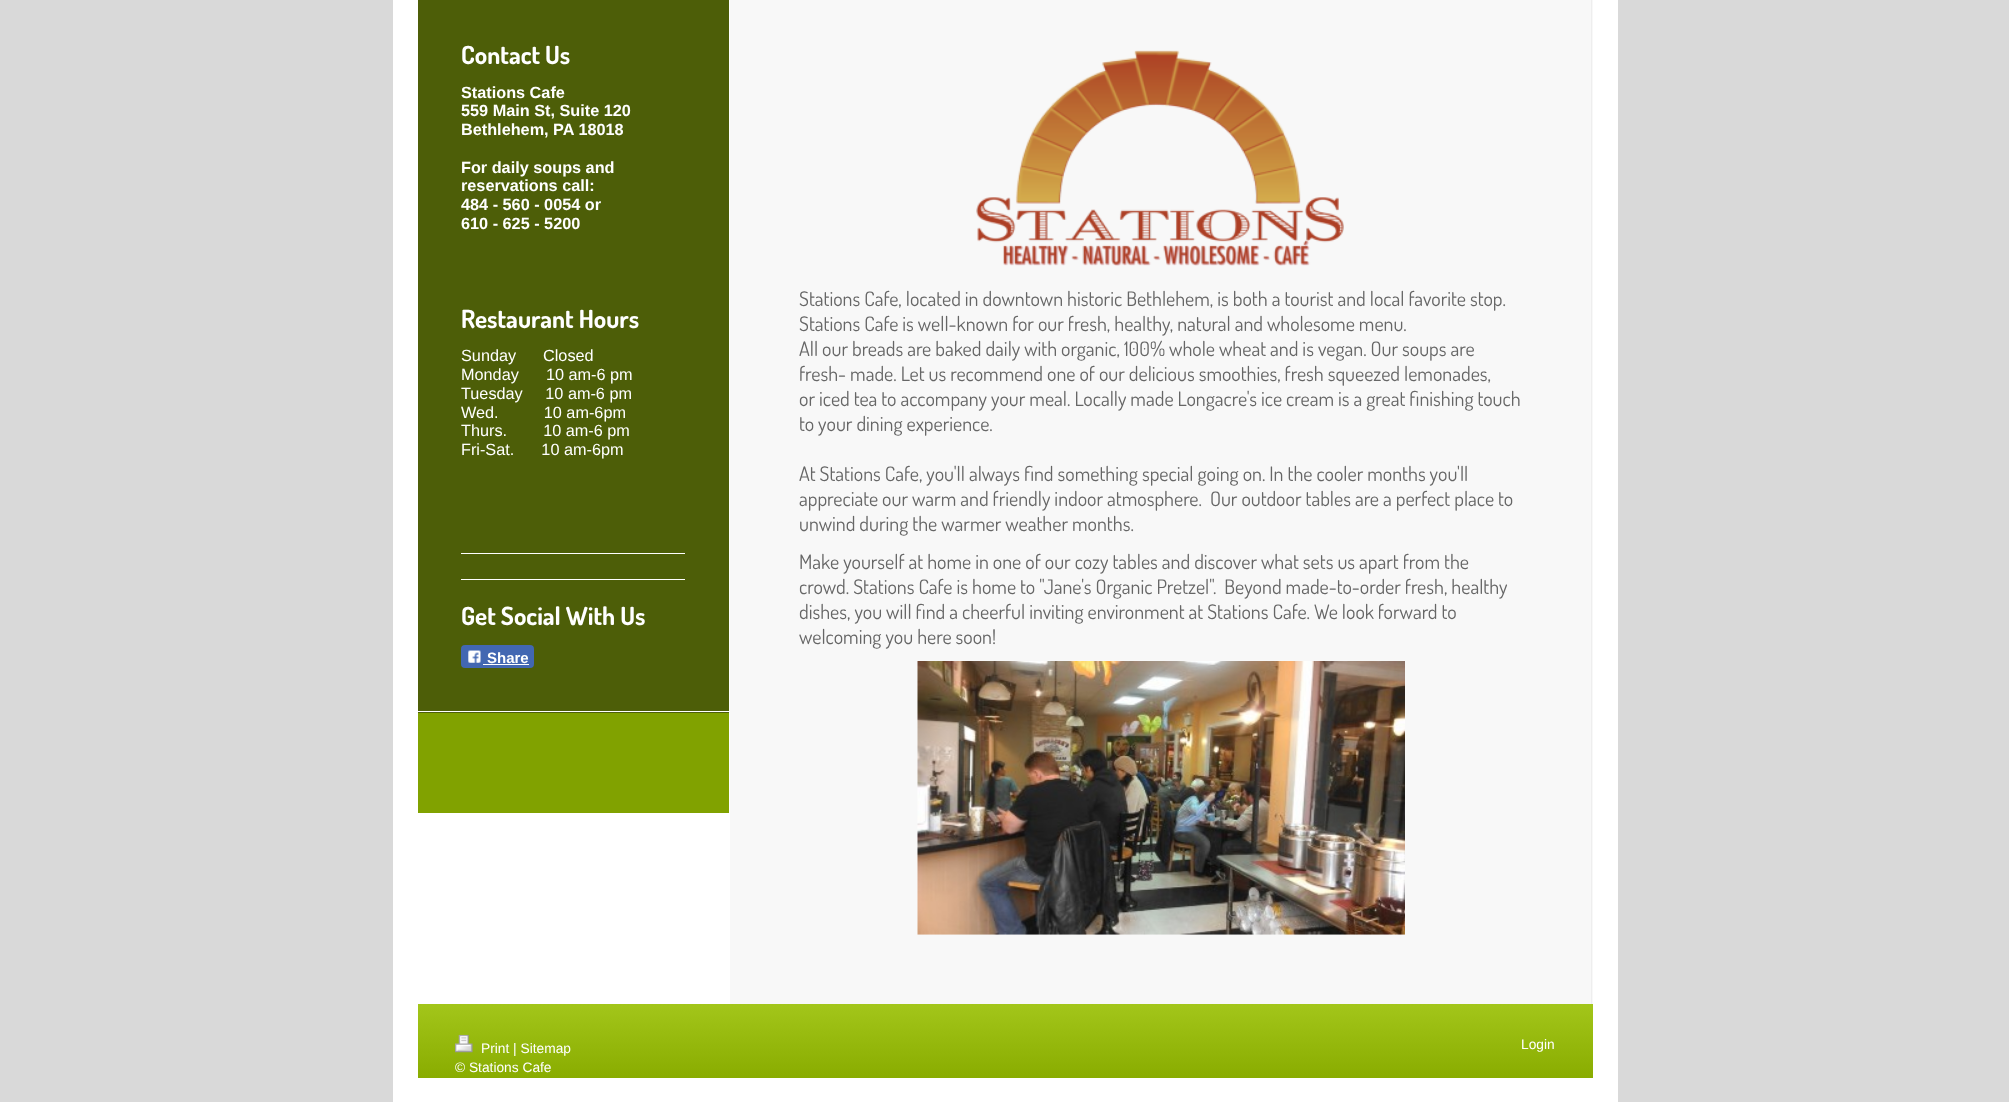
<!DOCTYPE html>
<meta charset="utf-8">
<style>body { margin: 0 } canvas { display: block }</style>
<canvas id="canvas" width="2009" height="1102"></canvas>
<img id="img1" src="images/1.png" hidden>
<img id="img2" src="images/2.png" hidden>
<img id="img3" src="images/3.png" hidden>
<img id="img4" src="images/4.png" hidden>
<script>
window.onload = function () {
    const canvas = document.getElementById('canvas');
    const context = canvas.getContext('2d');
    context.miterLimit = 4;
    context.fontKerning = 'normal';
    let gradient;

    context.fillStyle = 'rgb(217, 217, 217)';
    context.fillRect(0, 0, 2009, 1102);
    context.fillStyle = 'rgb(255, 255, 255)';
    context.fillRect(393, 0, 1225, 1102);
    context.fillStyle = 'rgb(129, 162, 0)';
    context.fillRect(418, 713, 311, 100);
    context.fillStyle = 'rgb(77, 94, 8)';
    context.fillRect(418, 0, 311, 713);
    context.fillStyle = 'rgb(255, 255, 255)';
    context.fillRect(418, 711, 311, 1);
    context.fillRect(461, 553, 224, 1);
    context.fillRect(461, 579, 224, 1);
    context.fillStyle = 'rgb(66, 103, 178)';
    context.beginPath();
    context.roundRect(461, 645, 73, 23, 4);
    context.fill();
    context.drawImage(document.getElementById('img1'), 468, 650, 13, 13);
    context.fillStyle = 'rgb(255, 255, 255)';
    context.fillRect(483, 664, 46, 1);
    context.fillStyle = 'rgb(248, 248, 248)';
    context.fillRect(730, 0, 863, 1004);
    context.fillStyle = 'rgb(238, 238, 238)';
    context.fillRect(1591, 0, 1, 1004);
    context.drawImage(document.getElementById('img2'), 976, 50, 368, 216);
    context.drawImage(document.getElementById('img3'), 917, 661, 488, 274);
    gradient = context.createLinearGradient(1005, 1004, 1005, 1078);
    gradient.addColorStop(0, 'rgb(163, 198, 26)');
    gradient.addColorStop(1, 'rgb(137, 172, 0)');
    context.fillStyle = gradient;
    context.fillRect(418, 1004, 1175, 74);
    context.drawImage(document.getElementById('img4'), 455, 1034, 18, 19);
    context.font = 'bold 25px Dosis';
    context.fillStyle = 'rgb(255, 255, 255)';
    context.fillText('Contact Us', 461, 64);
    context.font = 'bold 16.25px Liberation Sans';
    context.fillText('Stations Cafe', 461, 98);
    context.fillText('559 Main St, Suite 120', 461, 116);
    context.fillText('Bethlehem, PA 18018', 461, 135);
    context.fillText('For daily soups and', 461, 173);
    context.fillText('reservations call:', 461, 191);
    context.fillText('484 - 560 - 0054 or', 461, 210);
    context.fillText('610 - 625 - 5200', 461, 229);
    context.font = 'bold 25px Dosis';
    context.fillText('Restaurant Hours', 461, 328);
    context.font = '16.25px Liberation Sans';
    context.fillText('Sunday', 461, 361);
    context.fillText('Closed', 543, 361);
    context.fillText('Monday      10 am-6 pm', 461, 380);
    context.fillText('Tuesday     10 am-6 pm', 461, 399);
    context.fillText('Wed.          10 am-6pm', 461, 418);
    context.fillText('Thurs.        10 am-6 pm', 461, 436);
    context.fillText('Fri-Sat.      10 am-6pm', 461, 455);
    context.font = 'bold 25px Dosis';
    context.fillText('Get Social With Us', 461, 625);
    context.font = 'bold 15px Liberation Sans';
    context.fillText('Share', 487, 663);
    context.font = '20px Dosis';
    context.fillStyle = 'rgb(102, 102, 102)';
    context.fillText('Stations Cafe, located in downtown historic Bethlehem, is both a tourist and local favorite stop.', 799, 306);
    context.fillText('Stations Cafe is well-known for our fresh, healthy, natural and wholesome menu.', 799, 331);
    context.fillText('All our breads are baked daily with organic, 100% whole wheat and is vegan. Our soups are', 799, 356);
    context.fillText('fresh- made. Let us recommend one of our delicious smoothies, fresh squeezed lemonades,', 799, 381);
    context.fillText('or iced tea to accompany your meal. Locally made Longacre\'s ice cream is a great finishing touch', 799, 406);
    context.fillText('to your dining experience.', 799, 431);
    context.fillText('At Stations Cafe, you\'ll always find something special going on. In the cooler months you\'ll', 799, 481);
    context.fillText('appreciate our warm and friendly indoor atmosphere.  Our outdoor tables are a perfect place to', 799, 506);
    context.fillText('unwind during the warmer weather months.', 799, 531);
    context.fillText('Make yourself at home in one of our cozy tables and discover what sets us apart from the', 799, 569);
    context.fillText('crowd. Stations Cafe is home to "Jane\'s Organic Pretzel".  Beyond made-to-order fresh, healthy', 799, 594);
    context.fillText('dishes, you will find a cheerful inviting environment at Stations Cafe. We look forward to', 799, 619);
    context.fillText('welcoming you here soon!', 799, 644);
    context.font = '13.75px Liberation Sans';
    context.fillStyle = 'rgb(255, 255, 255)';
    context.fillText('Print | Sitemap', 481, 1053);
    context.fillText('© Stations Cafe', 455, 1072);
    context.fillText('Login', 1521, 1049);
};
</script>
